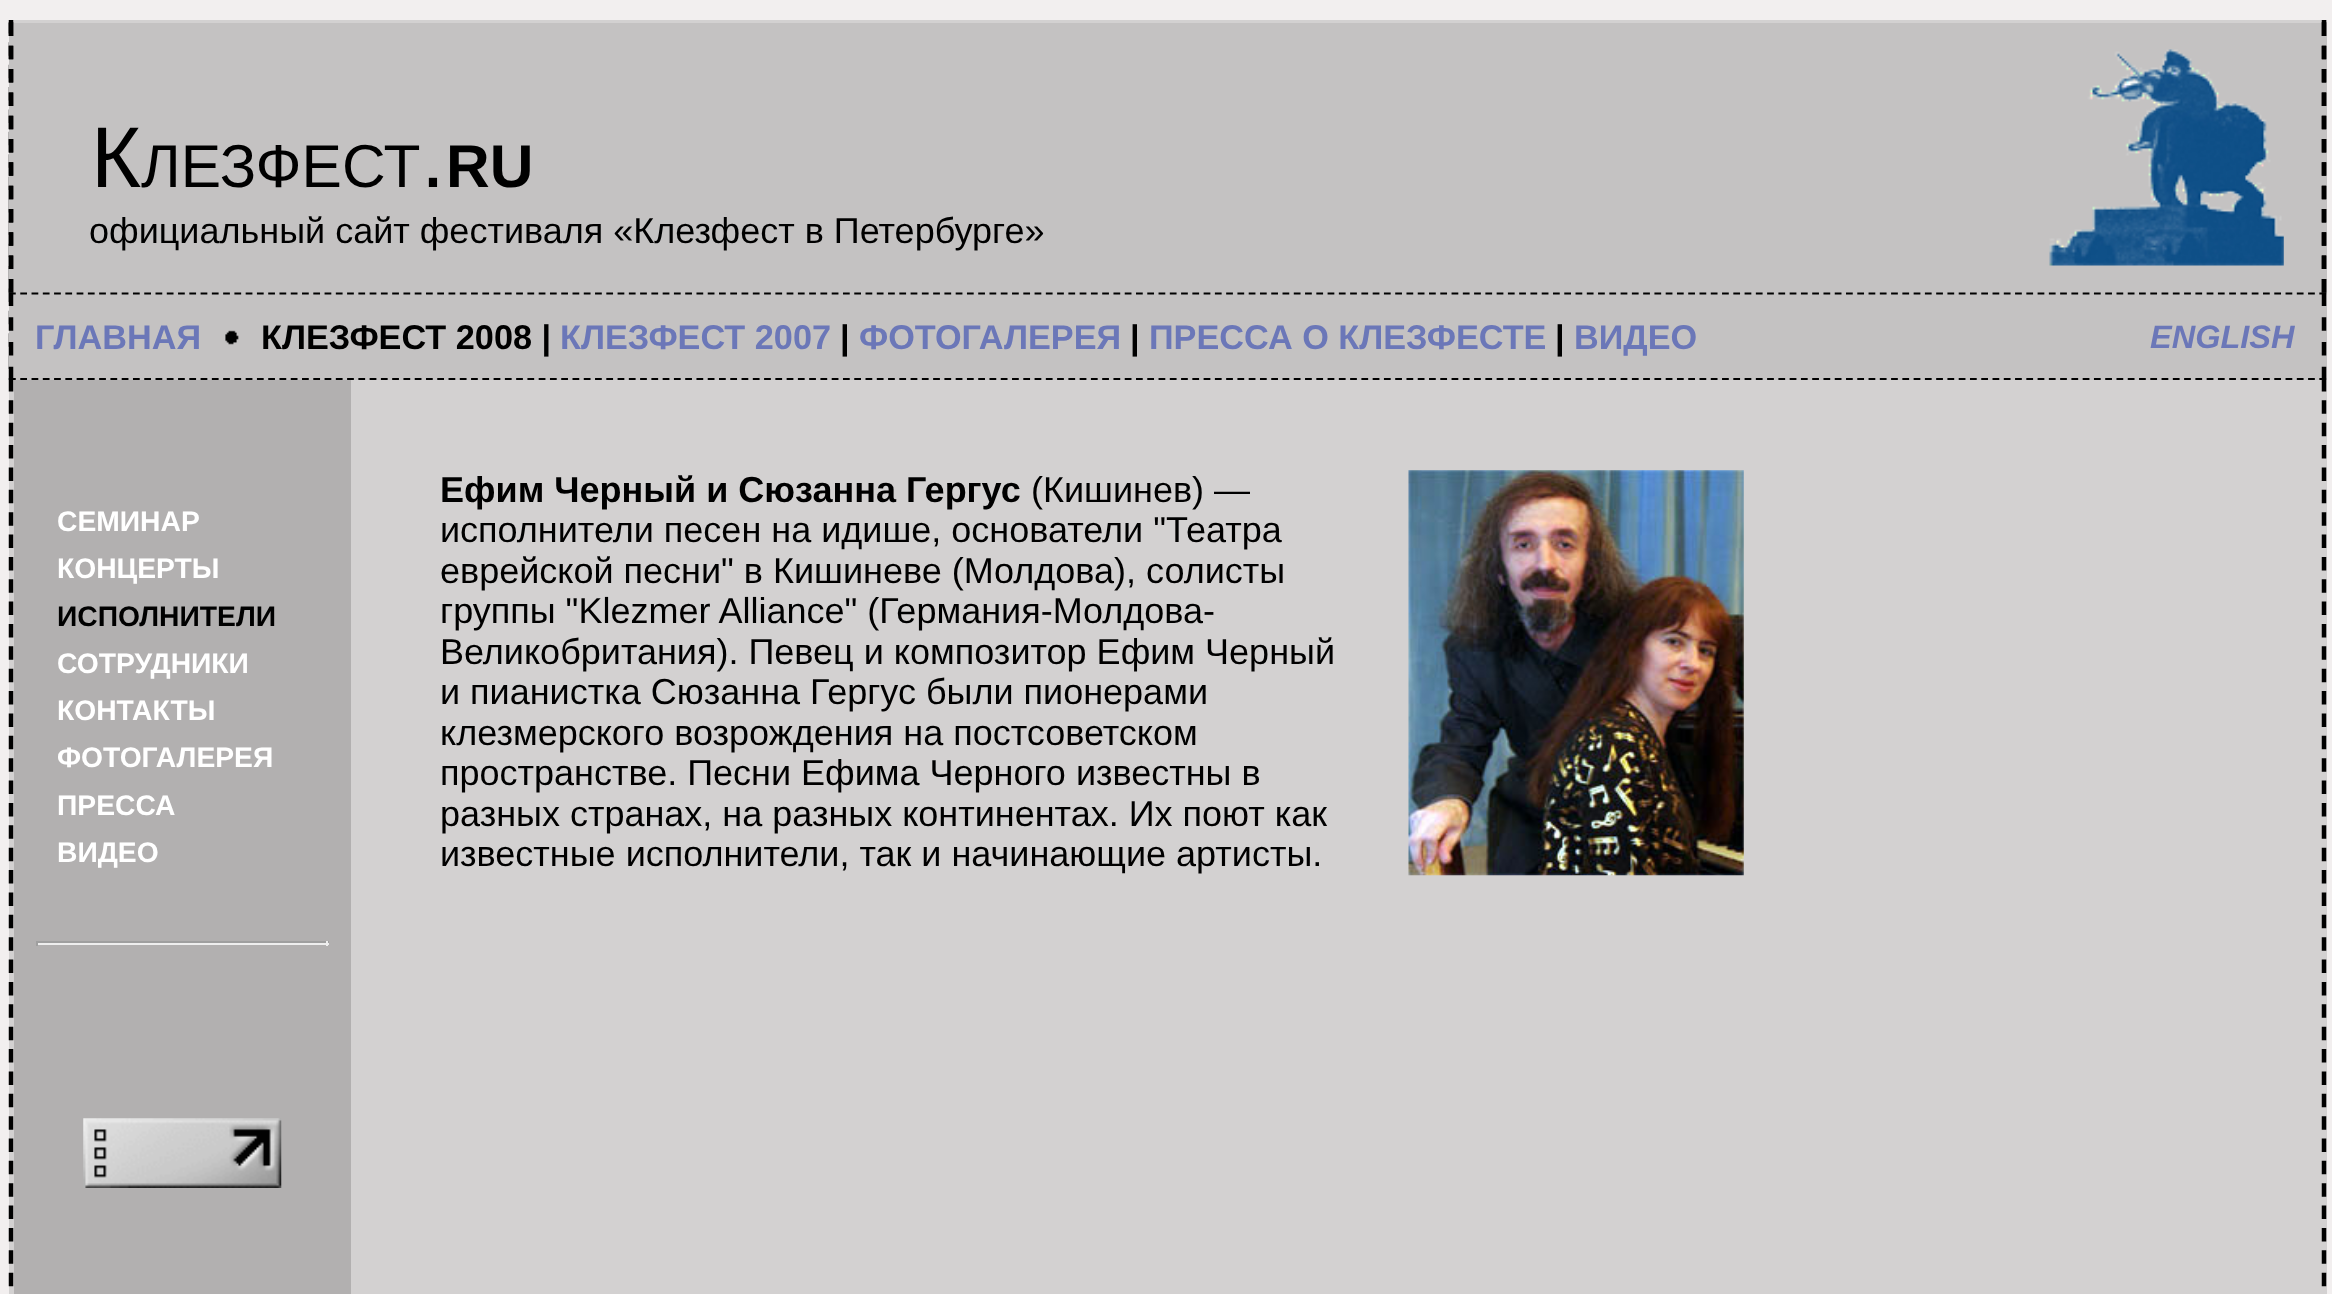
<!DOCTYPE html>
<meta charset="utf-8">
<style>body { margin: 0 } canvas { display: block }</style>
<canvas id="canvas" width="2332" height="1294"></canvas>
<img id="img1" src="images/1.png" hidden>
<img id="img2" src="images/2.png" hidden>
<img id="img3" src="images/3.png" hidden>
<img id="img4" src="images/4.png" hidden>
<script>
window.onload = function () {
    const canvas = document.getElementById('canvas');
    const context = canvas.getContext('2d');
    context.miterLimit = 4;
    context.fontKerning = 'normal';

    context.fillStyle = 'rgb(242, 239, 239)';
    context.fillRect(0, 0, 2332, 1294);
    context.fillStyle = 'rgb(211, 209, 209)';
    context.fillRect(9, 20, 2318, 1274);
    context.beginPath();
    context.moveTo(2324, 20);
    context.lineTo(2324, 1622);
    context.strokeStyle = 'rgb(0, 0, 0)';
    context.lineWidth = 4.5;
    context.setLineDash([13.5, 8.87]);
    context.stroke();
    context.beginPath();
    context.moveTo(11, 20);
    context.lineTo(11, 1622);
    context.stroke();
    context.fillStyle = 'rgb(196, 194, 194)';
    context.fillRect(9, 23, 2318, 357);
    context.beginPath();
    context.moveTo(2324, 22.5);
    context.lineTo(2324, 292.5);
    context.setLineDash([13.5, 9.81]);
    context.stroke();
    context.beginPath();
    context.moveTo(11, 22.5);
    context.lineTo(11, 292.5);
    context.stroke();
    context.beginPath();
    context.moveTo(9, 293.5);
    context.lineTo(2326.5, 293.5);
    context.lineWidth = 2.2;
    context.setLineDash([6.75, 4.52]);
    context.stroke();
    context.beginPath();
    context.moveTo(2324, 292.5);
    context.lineTo(2324, 380);
    context.lineWidth = 4.5;
    context.setLineDash([13.5, 11.25]);
    context.stroke();
    context.beginPath();
    context.moveTo(2324, 22.5);
    context.lineTo(2324, 292.5);
    context.setLineDash([13.5, 9.81]);
    context.stroke();
    context.fillStyle = 'rgb(178, 176, 176)';
    context.fillRect(14, 380, 337, 914);
    context.beginPath();
    context.moveTo(9, 379);
    context.lineTo(2326.5, 379);
    context.lineWidth = 2.2;
    context.setLineDash([6.75, 4.52]);
    context.stroke();
    context.beginPath();
    context.moveTo(11, 292.5);
    context.lineTo(11, 380);
    context.lineWidth = 4.5;
    context.setLineDash([13.5, 11.25]);
    context.stroke();
    context.beginPath();
    context.moveTo(11, 22.5);
    context.lineTo(11, 292.5);
    context.setLineDash([13.5, 9.81]);
    context.stroke();
    context.drawImage(document.getElementById('img1'), 2049, 49, 235, 217);
    context.drawImage(document.getElementById('img2'), 225, 330, 14, 15);
    context.fillStyle = 'rgb(159, 159, 159)';
    context.fillRect(36, 941, 293, 2);
    context.fillStyle = 'rgb(238, 238, 238)';
    context.fillRect(326, 941, 2, 5);
    context.fillRect(36, 943, 293, 2);
    context.fillStyle = 'rgb(159, 159, 159)';
    context.fillRect(36, 941, 2, 5);
    context.drawImage(document.getElementById('img3'), 83, 1118, 199, 70);
    context.drawImage(document.getElementById('img4'), 1408, 470, 336, 406);
    context.font = '86px Liberation Sans';
    context.fillStyle = 'rgb(0, 0, 0)';
    context.fillText('К', 91, 187);
    context.font = '60.5px Liberation Sans';
    context.fillText('ЛЕЗФЕСТ', 141, 187);
    context.font = '86px Liberation Sans';
    context.fillText('.', 421, 187);
    context.font = 'bold 60.5px Liberation Sans';
    context.fillText('RU', 446, 187);
    context.font = '36px Liberation Sans';
    context.fillText('официальный сайт фестиваля «Клезфест в Петербурге»', 89, 243);
    context.font = 'bold 34.25px Liberation Sans';
    context.fillStyle = 'rgb(107, 119, 184)';
    context.fillText('ГЛАВНАЯ', 35, 349);
    context.fillStyle = 'rgb(0, 0, 0)';
    context.fillText('КЛЕЗФЕСТ 2008 |', 261, 349);
    context.fillStyle = 'rgb(107, 119, 184)';
    context.fillText('КЛЕЗФЕСТ 2007', 560, 349);
    context.fillStyle = 'rgb(0, 0, 0)';
    context.fillText('|', 840, 349);
    context.fillStyle = 'rgb(107, 119, 184)';
    context.fillText('ФОТОГАЛЕРЕЯ', 859, 349);
    context.fillStyle = 'rgb(0, 0, 0)';
    context.fillText('|', 1130, 349);
    context.fillStyle = 'rgb(107, 119, 184)';
    context.fillText('ПРЕССА О КЛЕЗФЕСТЕ', 1149, 349);
    context.fillStyle = 'rgb(0, 0, 0)';
    context.fillText('|', 1555, 349);
    context.fillStyle = 'rgb(107, 119, 184)';
    context.fillText('ВИДЕО', 1574, 349);
    context.font = 'italic bold 32.5px Liberation Sans';
    context.fillText('ENGLISH', 2150, 348);
    context.font = 'bold 28.25px Liberation Sans';
    context.fillStyle = 'rgb(255, 255, 255)';
    context.fillText('СЕМИНАР', 57, 531);
    context.fillText('КОНЦЕРТЫ', 57, 578);
    context.fillStyle = 'rgb(0, 0, 0)';
    context.fillText('ИСПОЛНИТЕЛИ', 57, 626);
    context.fillStyle = 'rgb(255, 255, 255)';
    context.fillText('СОТРУДНИКИ', 57, 673);
    context.fillText('КОНТАКТЫ', 57, 720);
    context.fillText('ФОТОГАЛЕРЕЯ', 57, 767);
    context.fillText('ПРЕССА', 57, 815);
    context.fillText('ВИДЕО', 57, 862);
    context.font = 'bold 36px Liberation Sans';
    context.fillStyle = 'rgb(0, 0, 0)';
    context.fillText('Ефим Черный и Сюзанна Гергус', 440, 502);
    context.font = '36px Liberation Sans';
    context.fillText('(Кишинев) —', 1031, 502);
    context.fillText('исполнители песен на идише, основатели "Театра', 440, 542);
    context.fillText('еврейской песни" в Кишиневе (Молдова), солисты', 440, 583);
    context.fillText('группы "Klezmer Alliance" (Германия-Молдова-', 440, 623);
    context.fillText('Великобритания). Певец и композитор Ефим Черный', 440, 664);
    context.fillText('и пианистка Сюзанна Гергус были пионерами', 440, 704);
    context.fillText('клезмерского возрождения на постсоветском', 440, 745);
    context.fillText('пространстве. Песни Ефима Черного известны в', 440, 785);
    context.fillText('разных странах, на разных континентах. Их поют как', 440, 826);
    context.fillText('известные исполнители, так и начинающие артисты.', 440, 866);
};
</script>
